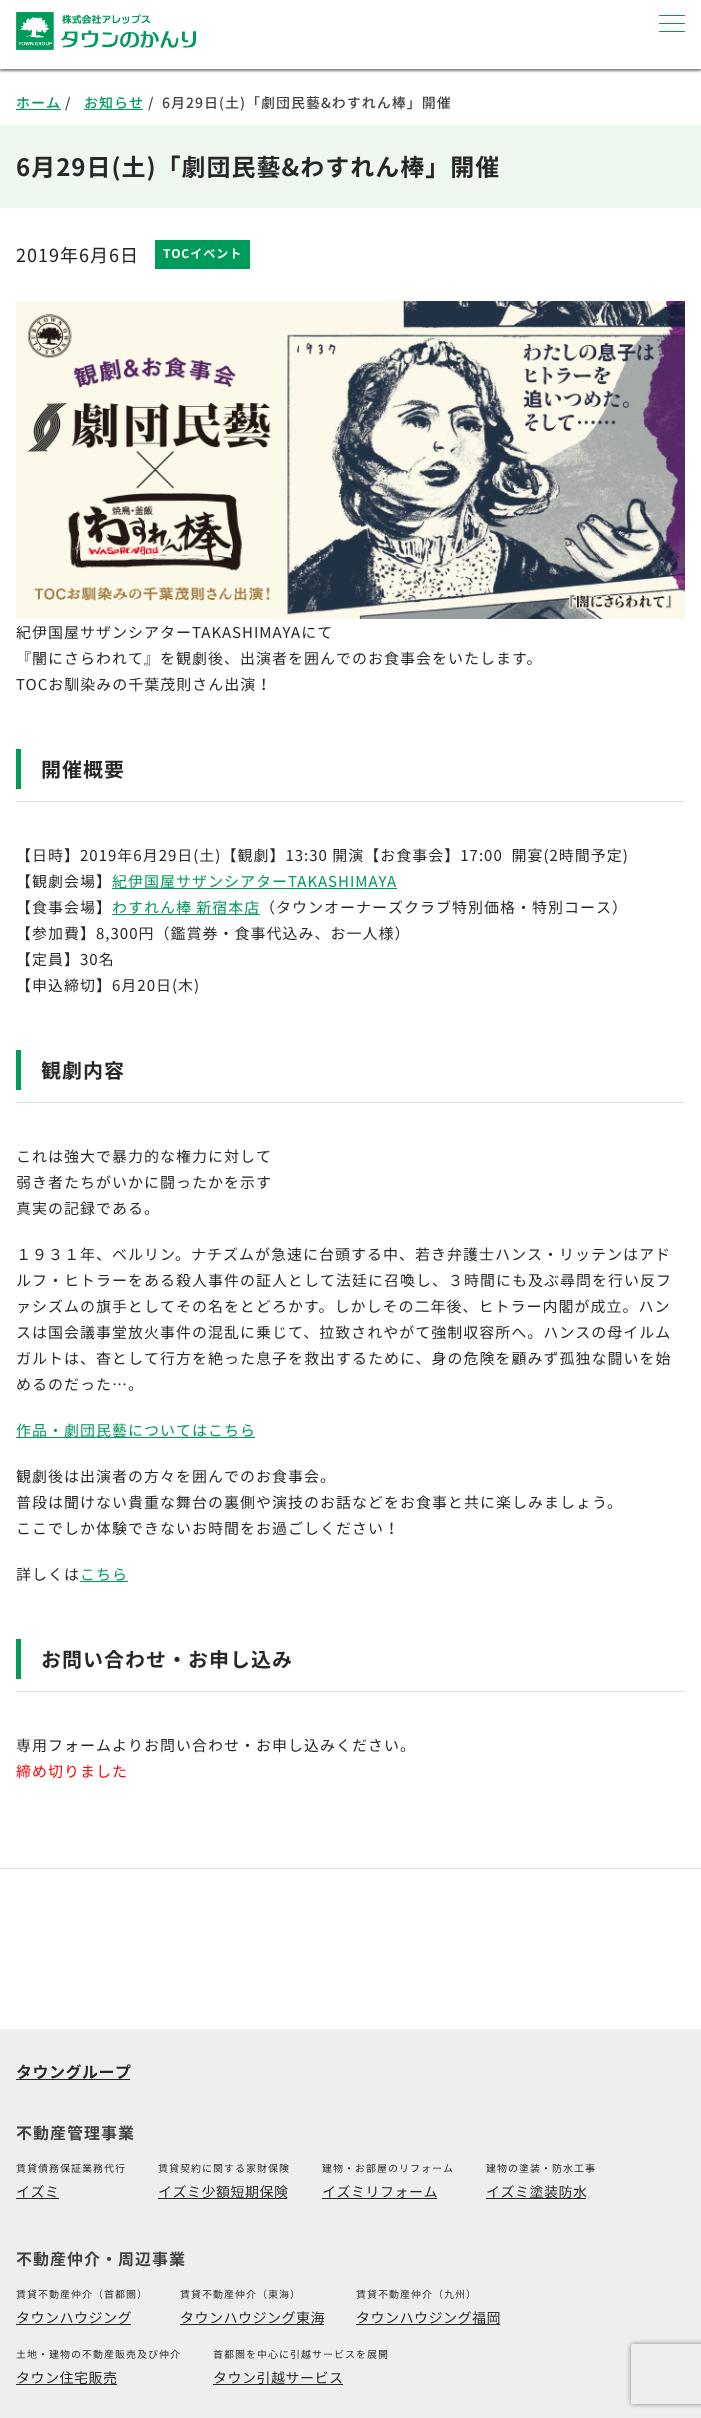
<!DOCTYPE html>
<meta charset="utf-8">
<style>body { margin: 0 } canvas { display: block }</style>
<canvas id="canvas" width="701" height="2418"></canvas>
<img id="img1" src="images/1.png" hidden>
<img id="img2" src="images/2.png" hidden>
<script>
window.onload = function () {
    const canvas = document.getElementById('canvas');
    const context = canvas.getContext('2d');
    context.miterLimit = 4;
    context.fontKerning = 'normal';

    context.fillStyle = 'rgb(255, 255, 255)';
    context.fillRect(0, 0, 701, 2418);
    context.fillStyle = 'rgba(0, 0, 0, 0.5)';
    context.filter = 'blur(1px)';
    context.beginPath();
    context.rect(0, 2, 701, 69);
    context.fill();
    context.filter = 'none';
    context.fillStyle = 'rgb(255, 255, 255)';
    context.fillRect(0, 0, 701, 69);
    context.drawImage(document.getElementById('img1'), 16, 12, 180, 38);
    context.fillStyle = 'rgb(0, 154, 90)';
    context.beginPath();
    context.roundRect(659, 15, 26, 1, 0.5);
    context.fill();
    context.beginPath();
    context.roundRect(659, 23, 26, 1, 0.5);
    context.fill();
    context.beginPath();
    context.roundRect(659, 31, 26, 1, 0.5);
    context.fill();
    context.fillRect(16, 109, 45, 1);
    context.fillRect(84, 109, 59, 1);
    context.fillStyle = 'rgb(222, 222, 222)';
    context.fillRect(0, 1868, 701, 1);
    context.fillStyle = 'rgb(238, 248, 239)';
    context.fillRect(0, 125, 701, 83);
    context.fillStyle = 'rgb(0, 154, 90)';
    context.fillRect(155, 240, 95, 29);
    context.drawImage(document.getElementById('img2'), 16, 301, 669, 318);
    context.fillStyle = 'rgb(222, 222, 222)';
    context.fillRect(16, 801, 669, 1);
    context.fillStyle = 'rgb(0, 154, 90)';
    context.fillRect(16, 749, 5, 40);
    context.fillRect(112, 888, 285, 1);
    context.fillRect(112, 914, 148, 1);
    context.fillStyle = 'rgb(222, 222, 222)';
    context.fillRect(16, 1102, 669, 1);
    context.fillStyle = 'rgb(0, 154, 90)';
    context.fillRect(16, 1050, 5, 40);
    context.fillRect(16, 1437, 239, 1);
    context.fillRect(80, 1581, 48, 1);
    context.fillStyle = 'rgb(222, 222, 222)';
    context.fillRect(16, 1691, 669, 1);
    context.fillStyle = 'rgb(0, 154, 90)';
    context.fillRect(16, 1639, 5, 40);
    context.fillStyle = 'rgb(238, 238, 238)';
    context.fillRect(0, 2029, 701, 389);
    context.fillStyle = 'rgb(40, 40, 40)';
    context.fillRect(16, 2079, 114, 1);
    context.fillRect(16, 2198, 43, 1);
    context.fillRect(158, 2198, 129, 1);
    context.fillRect(322, 2198, 115, 1);
    context.fillRect(486, 2198, 100, 1);
    context.fillRect(16, 2324, 115, 1);
    context.fillRect(180, 2324, 144, 1);
    context.fillRect(356, 2324, 144, 1);
    context.fillRect(16, 2384, 101, 1);
    context.fillRect(213, 2384, 130, 1);
    context.save();
    context.beginPath();
    context.moveTo(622, 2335);
    context.lineTo(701, 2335);
    context.lineTo(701, 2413);
    context.lineTo(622, 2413);
    context.closePath();
    context.moveTo(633, 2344);
    context.lineTo(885, 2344);
    context.bezierCurveTo(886, 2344, 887, 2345, 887, 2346);
    context.lineTo(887, 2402);
    context.bezierCurveTo(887, 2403, 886, 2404, 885, 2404);
    context.lineTo(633, 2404);
    context.bezierCurveTo(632, 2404, 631, 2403, 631, 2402);
    context.lineTo(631, 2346);
    context.bezierCurveTo(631, 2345, 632, 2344, 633, 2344);
    context.closePath();
    context.clip('evenodd');
    context.fillStyle = 'rgb(128, 128, 128)';
    context.filter = 'blur(2.5px)';
    context.beginPath();
    context.roundRect(631, 2344, 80, 60, 2);
    context.fill();
    context.filter = 'none';
    context.restore();
    context.letterSpacing = '1px';
    context.font = '500 14px Noto Sans JP';
    context.fillStyle = 'rgb(0, 154, 90)';
    context.fillText('ホーム', 16, 108);
    context.fillStyle = 'rgb(66, 66, 66)';
    context.fillText('/', 65, 108);
    context.fillStyle = 'rgb(0, 154, 90)';
    context.fillText('お知らせ', 84, 108);
    context.fillStyle = 'rgb(66, 66, 66)';
    context.fillText('/', 148, 108);
    context.fillText('6月29日(土)「劇団民藝&わすれん棒」開催', 162, 108);
    context.font = 'bold 24px Noto Sans JP';
    context.fillStyle = 'rgb(40, 40, 40)';
    context.fillText('6月29日(土)「劇団民藝&わすれん棒」開催', 16, 176);
    context.font = '18px Noto Sans JP';
    context.fillStyle = 'rgb(34, 34, 34)';
    context.fillText('2019年6月6日', 16, 262);
    context.font = 'bold 12px Noto Sans JP';
    context.fillStyle = 'rgb(255, 255, 255)';
    context.fillText('TOCイベント', 163, 258);
    context.font = '15px "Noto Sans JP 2"';
    context.fillStyle = 'rgb(40, 40, 40)';
    context.fillText('紀伊国屋サザンシアターTAKASHIMAYAにて', 16, 638);
    context.fillText('『闇にさらわれて』を観劇後、出演者を囲んでのお食事会をいたします。', 16, 664);
    context.fillText('TOCお馴染みの千葉茂則さん出演！', 16, 690);
    context.font = 'bold 20px Noto Sans JP';
    context.fillText('開催概要', 41, 777);
    context.font = '15px "Noto Sans JP 2"';
    context.fillText('【日時】2019年6月29日(土)【観劇】13:30 開演【お食事会】17:00  開宴(2時間予定)', 16, 861);
    context.fillText('【観劇会場】', 16, 887);
    context.fillStyle = 'rgb(0, 154, 90)';
    context.fillText('紀伊国屋サザンシアターTAKASHIMAYA', 112, 887);
    context.fillStyle = 'rgb(40, 40, 40)';
    context.fillText('【食事会場】', 16, 913);
    context.fillStyle = 'rgb(0, 154, 90)';
    context.fillText('わすれん棒 新宿本店', 112, 913);
    context.fillStyle = 'rgb(40, 40, 40)';
    context.fillText('（タウンオーナーズクラブ特別価格・特別コース）', 260, 913);
    context.fillText('【参加費】8,300円（鑑賞券・食事代込み、お一人様）', 16, 939);
    context.fillText('【定員】30名', 16, 965);
    context.fillText('【申込締切】6月20日(木)', 16, 991);
    context.font = 'bold 20px Noto Sans JP';
    context.fillText('観劇内容', 41, 1078);
    context.font = '15px "Noto Sans JP 2"';
    context.fillText('これは強大で暴力的な権力に対して', 16, 1162);
    context.fillText('弱き者たちがいかに闘ったかを示す', 16, 1188);
    context.fillText('真実の記録である。', 16, 1214);
    context.fillText('１９３１年、ベルリン。ナチズムが急速に台頭する中、若き弁護士ハンス・リッテンはアド', 16, 1260);
    context.fillText('ルフ・ヒトラーをある殺人事件の証人として法廷に召喚し、３時間にも及ぶ尋問を行い反フ', 16, 1286);
    context.fillText('ァシズムの旗手としてその名をとどろかす。しかしその二年後、ヒトラー内閣が成立。ハン', 16, 1312);
    context.fillText('スは国会議事堂放火事件の混乱に乗じて、拉致されやがて強制収容所へ。ハンスの母イルム', 16, 1338);
    context.fillText('ガルトは、杳として行方を絶った息子を救出するために、身の危険を顧みず孤独な闘いを始', 16, 1364);
    context.fillText('めるのだった…。', 16, 1390);
    context.fillStyle = 'rgb(0, 154, 90)';
    context.fillText('作品・劇団民藝についてはこちら', 16, 1436);
    context.fillStyle = 'rgb(40, 40, 40)';
    context.fillText('観劇後は出演者の方々を囲んでのお食事会。', 16, 1482);
    context.fillText('普段は聞けない貴重な舞台の裏側や演技のお話などをお食事と共に楽しみましょう。', 16, 1508);
    context.fillText('ここでしか体験できないお時間をお過ごしください！', 16, 1534);
    context.fillText('詳しくは', 16, 1580);
    context.fillStyle = 'rgb(0, 154, 90)';
    context.fillText('こちら', 80, 1580);
    context.font = 'bold 20px Noto Sans JP';
    context.fillStyle = 'rgb(40, 40, 40)';
    context.fillText('お問い合わせ・お申し込み', 41, 1667);
    context.font = '15px "Noto Sans JP 2"';
    context.fillText('専用フォームよりお問い合わせ・お申し込みください。', 16, 1751);
    context.fillStyle = 'rgb(255, 0, 0)';
    context.fillText('締め切りました', 16, 1777);
    context.letterSpacing = '0.5px';
    context.font = 'bold 16px Noto Sans JP';
    context.fillStyle = 'rgb(40, 40, 40)';
    context.fillText('タウングループ', 16, 2078);
    context.letterSpacing = '1px';
    context.fillStyle = 'rgb(66, 66, 66)';
    context.fillText('不動産管理事業', 16, 2139);
    context.font = '10px "Noto Sans JP 2"';
    context.fillStyle = 'rgb(40, 40, 40)';
    context.fillText('賃貸債務保証業務代行', 16, 2172);
    context.letterSpacing = '0.5px';
    context.font = '14px "Noto Sans JP 2"';
    context.fillText('イズミ', 16, 2197);
    context.letterSpacing = '1px';
    context.font = '10px "Noto Sans JP 2"';
    context.fillText('賃貸契約に関する家財保険', 158, 2172);
    context.letterSpacing = '0.5px';
    context.font = '14px "Noto Sans JP 2"';
    context.fillText('イズミ少額短期保険', 158, 2197);
    context.letterSpacing = '1px';
    context.font = '10px "Noto Sans JP 2"';
    context.fillText('建物・お部屋のリフォーム', 322, 2172);
    context.letterSpacing = '0.5px';
    context.font = '14px "Noto Sans JP 2"';
    context.fillText('イズミリフォーム', 322, 2197);
    context.letterSpacing = '1px';
    context.font = '10px "Noto Sans JP 2"';
    context.fillText('建物の塗装・防水工事', 486, 2172);
    context.letterSpacing = '0.5px';
    context.font = '14px "Noto Sans JP 2"';
    context.fillText('イズミ塗装防水', 486, 2197);
    context.letterSpacing = '1px';
    context.font = 'bold 16px Noto Sans JP';
    context.fillStyle = 'rgb(66, 66, 66)';
    context.fillText('不動産仲介・周辺事業', 16, 2265);
    context.font = '10px "Noto Sans JP 2"';
    context.fillStyle = 'rgb(40, 40, 40)';
    context.fillText('賃貸不動産仲介（首都圏）', 16, 2298);
    context.letterSpacing = '0.5px';
    context.font = '14px "Noto Sans JP 2"';
    context.fillText('タウンハウジング', 16, 2323);
    context.letterSpacing = '1px';
    context.font = '10px "Noto Sans JP 2"';
    context.fillText('賃貸不動産仲介（東海）', 180, 2298);
    context.letterSpacing = '0.5px';
    context.font = '14px "Noto Sans JP 2"';
    context.fillText('タウンハウジング東海', 180, 2323);
    context.letterSpacing = '1px';
    context.font = '10px "Noto Sans JP 2"';
    context.fillText('賃貸不動産仲介（九州）', 356, 2298);
    context.letterSpacing = '0.5px';
    context.font = '14px "Noto Sans JP 2"';
    context.fillText('タウンハウジング福岡', 356, 2323);
    context.letterSpacing = '1px';
    context.font = '10px "Noto Sans JP 2"';
    context.fillText('土地・建物の不動産販売及び仲介', 16, 2358);
    context.letterSpacing = '0.5px';
    context.font = '14px "Noto Sans JP 2"';
    context.fillText('タウン住宅販売', 16, 2383);
    context.letterSpacing = '1px';
    context.font = '10px "Noto Sans JP 2"';
    context.fillText('首都圏を中心に引越サービスを展開', 213, 2358);
    context.letterSpacing = '0.5px';
    context.font = '14px "Noto Sans JP 2"';
    context.fillText('タウン引越サービス', 213, 2383);
};
</script>
